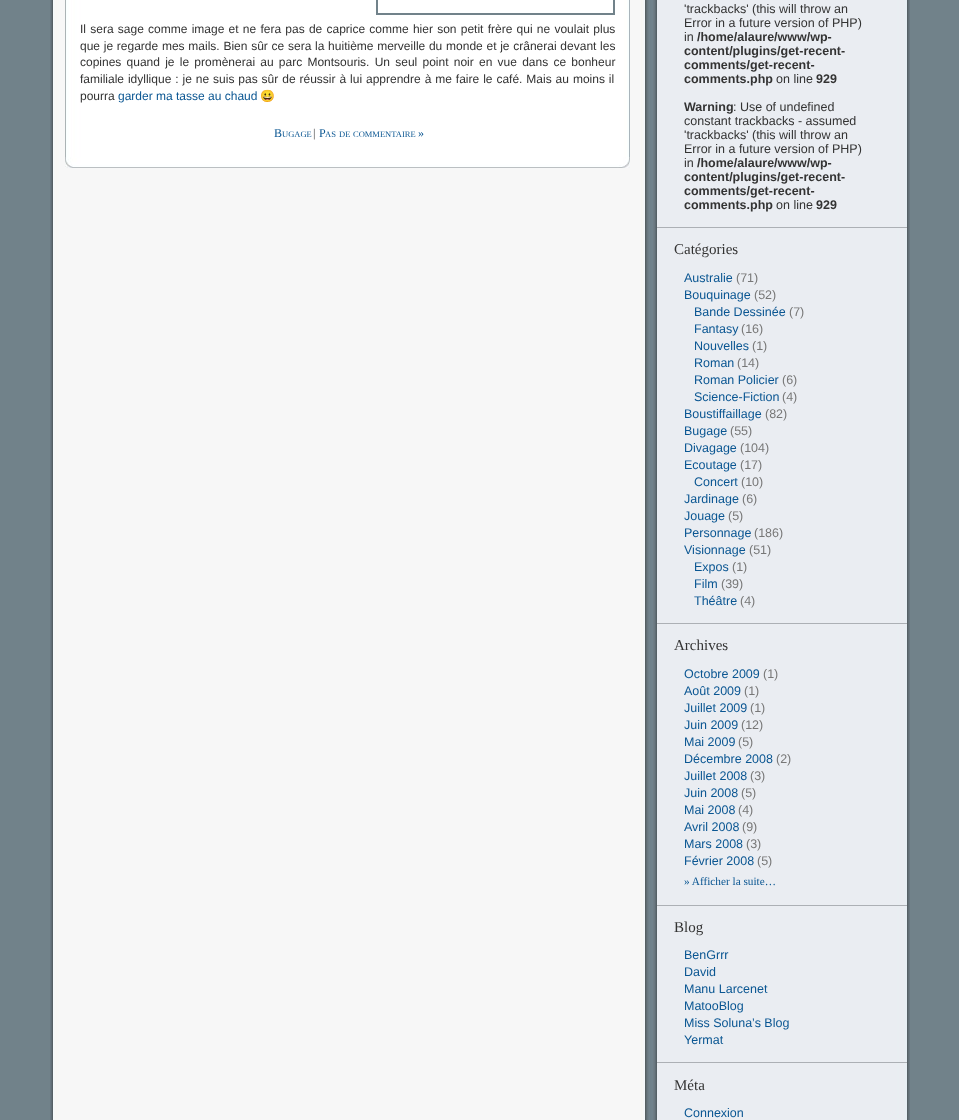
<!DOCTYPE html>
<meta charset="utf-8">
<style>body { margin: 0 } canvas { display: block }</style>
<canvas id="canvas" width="959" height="1120"></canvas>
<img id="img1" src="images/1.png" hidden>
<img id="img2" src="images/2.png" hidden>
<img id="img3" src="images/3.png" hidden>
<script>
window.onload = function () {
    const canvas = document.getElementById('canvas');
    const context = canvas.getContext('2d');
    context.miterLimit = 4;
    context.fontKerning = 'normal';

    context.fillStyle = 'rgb(113, 130, 138)';
    context.fillRect(0, 0, 959, 1120);
    context.drawImage(document.getElementById('img1'), 50, 0, 860, 1120);
    context.drawImage(document.getElementById('img2'), 65, 157, 565, 11);
    context.drawImage(document.getElementById('img3'), 65, 0, 565, 157);
    context.strokeStyle = 'rgb(113, 130, 138)';
    context.lineWidth = 2;
    context.strokeRect(377, -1, 237, 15);
    context.fillStyle = 'rgb(234, 239, 243)';
    context.fillRect(906, 228, 1, 1);
    context.fillStyle = 'rgb(172, 176, 181)';
    context.fillRect(657, 227, 250, 1);
    context.fillStyle = 'rgb(234, 239, 243)';
    context.fillRect(906, 624, 1, 1);
    context.fillStyle = 'rgb(172, 176, 181)';
    context.fillRect(657, 623, 250, 1);
    context.fillStyle = 'rgb(234, 239, 243)';
    context.fillRect(906, 906, 1, 1);
    context.fillStyle = 'rgb(172, 176, 181)';
    context.fillRect(657, 905, 250, 1);
    context.fillStyle = 'rgb(234, 239, 243)';
    context.fillRect(906, 1063, 1, 1);
    context.fillStyle = 'rgb(172, 176, 181)';
    context.fillRect(657, 1062, 250, 1);
    context.wordSpacing = '0.9px';
    context.font = '12px Liberation Sans';
    context.fillStyle = 'rgb(51, 51, 51)';
    context.fillText('Il sera sage comme image et ne fera pas de caprice comme hier son petit frère qui ne voulait plus', 80, 33);
    context.wordSpacing = '0.4px';
    context.fillText('que je regarde mes mails. Bien sûr ce sera la huitième merveille du monde et je crânerai devant les', 80, 50);
    context.wordSpacing = '1.9px';
    context.fillText('copines quand je le promènerai au parc Montsouris. Un seul point noir en vue dans ce bonheur', 80, 66);
    context.wordSpacing = '0.6px';
    context.fillText('familiale idyllique : je ne suis pas sûr de réussir à lui apprendre à me faire le café. Mais au moins il', 80, 83);
    context.wordSpacing = '0px';
    context.fillText('pourra', 80, 100);
    context.fillStyle = 'rgb(10, 86, 146)';
    context.fillText('garder ma tasse au chaud', 118, 100);
    context.font = '12px Noto Color Emoji';
    context.fillStyle = 'rgb(51, 51, 51)';
    context.fillText('😀', 260, 100);
    context.font = '12px Liberation Serif';
    context.fillStyle = 'rgb(10, 86, 146)';
    context.fillText('B', 274, 137);
    context.font = '8.5px Liberation Serif';
    context.fillText('UGAGE', 282, 137);
    context.font = 'bold 12px Liberation Serif';
    context.fillStyle = 'rgb(119, 119, 119)';
    context.fillText('|', 313, 137);
    context.font = '12px Liberation Serif';
    context.fillStyle = 'rgb(10, 86, 146)';
    context.fillText('P', 319, 137);
    context.font = '8.5px Liberation Serif';
    context.fillText('AS', 325, 137);
    context.fillText('DE', 339, 137);
    context.fillText('COMMENTAIRE', 353, 137);
    context.font = '12px Liberation Serif';
    context.fillText('»', 418, 137);
    context.font = '12.5px Liberation Sans';
    context.fillStyle = 'rgb(51, 51, 51)';
    context.fillText('\'trackbacks\' (this will throw an', 684, 13);
    context.fillText('Error in a future version of PHP)', 684, 27);
    context.fillText('in', 684, 41);
    context.font = 'bold 12.5px Liberation Sans';
    context.fillText('/home/alaure/www/wp-', 697, 41);
    context.fillText('content/plugins/get-recent-', 684, 55);
    context.fillText('comments/get-recent-', 684, 69);
    context.fillText('comments.php', 684, 83);
    context.font = '12.5px Liberation Sans';
    context.fillText('on line', 776, 83);
    context.font = 'bold 12.5px Liberation Sans';
    context.fillText('929', 816, 83);
    context.fillText('Warning', 684, 111);
    context.font = '12.5px Liberation Sans';
    context.fillText(': Use of undefined', 733, 111);
    context.fillText('constant trackbacks - assumed', 684, 125);
    context.fillText('\'trackbacks\' (this will throw an', 684, 139);
    context.fillText('Error in a future version of PHP)', 684, 153);
    context.fillText('in', 684, 167);
    context.font = 'bold 12.5px Liberation Sans';
    context.fillText('/home/alaure/www/wp-', 697, 167);
    context.fillText('content/plugins/get-recent-', 684, 181);
    context.fillText('comments/get-recent-', 684, 195);
    context.fillText('comments.php', 684, 209);
    context.font = '12.5px Liberation Sans';
    context.fillText('on line', 776, 209);
    context.font = 'bold 12.5px Liberation Sans';
    context.fillText('929', 816, 209);
    context.font = '15px Liberation Serif';
    context.fillText('Catégories', 674, 254);
    context.font = '12.5px Liberation Sans';
    context.fillStyle = 'rgb(10, 86, 146)';
    context.fillText('Australie', 684, 282);
    context.fillStyle = 'rgb(119, 119, 119)';
    context.fillText('(71)', 736, 282);
    context.fillStyle = 'rgb(10, 86, 146)';
    context.fillText('Bouquinage', 684, 299);
    context.fillStyle = 'rgb(119, 119, 119)';
    context.fillText('(52)', 754, 299);
    context.fillStyle = 'rgb(10, 86, 146)';
    context.fillText('Bande Dessinée', 694, 316);
    context.fillStyle = 'rgb(119, 119, 119)';
    context.fillText('(7)', 789, 316);
    context.fillStyle = 'rgb(10, 86, 146)';
    context.fillText('Fantasy', 694, 333);
    context.fillStyle = 'rgb(119, 119, 119)';
    context.fillText('(16)', 741, 333);
    context.fillStyle = 'rgb(10, 86, 146)';
    context.fillText('Nouvelles', 694, 350);
    context.fillStyle = 'rgb(119, 119, 119)';
    context.fillText('(1)', 752, 350);
    context.fillStyle = 'rgb(10, 86, 146)';
    context.fillText('Roman', 694, 367);
    context.fillStyle = 'rgb(119, 119, 119)';
    context.fillText('(14)', 737, 367);
    context.fillStyle = 'rgb(10, 86, 146)';
    context.fillText('Roman Policier', 694, 384);
    context.fillStyle = 'rgb(119, 119, 119)';
    context.fillText('(6)', 782, 384);
    context.fillStyle = 'rgb(10, 86, 146)';
    context.fillText('Science-Fiction', 694, 401);
    context.fillStyle = 'rgb(119, 119, 119)';
    context.fillText('(4)', 782, 401);
    context.fillStyle = 'rgb(10, 86, 146)';
    context.fillText('Boustiffaillage', 684, 418);
    context.fillStyle = 'rgb(119, 119, 119)';
    context.fillText('(82)', 765, 418);
    context.fillStyle = 'rgb(10, 86, 146)';
    context.fillText('Bugage', 684, 435);
    context.fillStyle = 'rgb(119, 119, 119)';
    context.fillText('(55)', 730, 435);
    context.fillStyle = 'rgb(10, 86, 146)';
    context.fillText('Divagage', 684, 452);
    context.fillStyle = 'rgb(119, 119, 119)';
    context.fillText('(104)', 740, 452);
    context.fillStyle = 'rgb(10, 86, 146)';
    context.fillText('Ecoutage', 684, 469);
    context.fillStyle = 'rgb(119, 119, 119)';
    context.fillText('(17)', 740, 469);
    context.fillStyle = 'rgb(10, 86, 146)';
    context.fillText('Concert', 694, 486);
    context.fillStyle = 'rgb(119, 119, 119)';
    context.fillText('(10)', 741, 486);
    context.fillStyle = 'rgb(10, 86, 146)';
    context.fillText('Jardinage', 684, 503);
    context.fillStyle = 'rgb(119, 119, 119)';
    context.fillText('(6)', 742, 503);
    context.fillStyle = 'rgb(10, 86, 146)';
    context.fillText('Jouage', 684, 520);
    context.fillStyle = 'rgb(119, 119, 119)';
    context.fillText('(5)', 728, 520);
    context.fillStyle = 'rgb(10, 86, 146)';
    context.fillText('Personnage', 684, 537);
    context.fillStyle = 'rgb(119, 119, 119)';
    context.fillText('(186)', 754, 537);
    context.fillStyle = 'rgb(10, 86, 146)';
    context.fillText('Visionnage', 684, 554);
    context.fillStyle = 'rgb(119, 119, 119)';
    context.fillText('(51)', 749, 554);
    context.fillStyle = 'rgb(10, 86, 146)';
    context.fillText('Expos', 694, 571);
    context.fillStyle = 'rgb(119, 119, 119)';
    context.fillText('(1)', 732, 571);
    context.fillStyle = 'rgb(10, 86, 146)';
    context.fillText('Film', 694, 588);
    context.fillStyle = 'rgb(119, 119, 119)';
    context.fillText('(39)', 721, 588);
    context.fillStyle = 'rgb(10, 86, 146)';
    context.fillText('Théâtre', 694, 605);
    context.fillStyle = 'rgb(119, 119, 119)';
    context.fillText('(4)', 740, 605);
    context.font = '15px Liberation Serif';
    context.fillStyle = 'rgb(51, 51, 51)';
    context.fillText('Archives', 674, 650);
    context.font = '12.5px Liberation Sans';
    context.fillStyle = 'rgb(10, 86, 146)';
    context.fillText('Octobre 2009', 684, 678);
    context.fillStyle = 'rgb(119, 119, 119)';
    context.fillText('(1)', 763, 678);
    context.fillStyle = 'rgb(10, 86, 146)';
    context.fillText('Août 2009', 684, 695);
    context.fillStyle = 'rgb(119, 119, 119)';
    context.fillText('(1)', 744, 695);
    context.fillStyle = 'rgb(10, 86, 146)';
    context.fillText('Juillet 2009', 684, 712);
    context.fillStyle = 'rgb(119, 119, 119)';
    context.fillText('(1)', 750, 712);
    context.fillStyle = 'rgb(10, 86, 146)';
    context.fillText('Juin 2009', 684, 729);
    context.fillStyle = 'rgb(119, 119, 119)';
    context.fillText('(12)', 741, 729);
    context.fillStyle = 'rgb(10, 86, 146)';
    context.fillText('Mai 2009', 684, 746);
    context.fillStyle = 'rgb(119, 119, 119)';
    context.fillText('(5)', 738, 746);
    context.fillStyle = 'rgb(10, 86, 146)';
    context.fillText('Décembre 2008', 684, 763);
    context.fillStyle = 'rgb(119, 119, 119)';
    context.fillText('(2)', 776, 763);
    context.fillStyle = 'rgb(10, 86, 146)';
    context.fillText('Juillet 2008', 684, 780);
    context.fillStyle = 'rgb(119, 119, 119)';
    context.fillText('(3)', 750, 780);
    context.fillStyle = 'rgb(10, 86, 146)';
    context.fillText('Juin 2008', 684, 797);
    context.fillStyle = 'rgb(119, 119, 119)';
    context.fillText('(5)', 741, 797);
    context.fillStyle = 'rgb(10, 86, 146)';
    context.fillText('Mai 2008', 684, 814);
    context.fillStyle = 'rgb(119, 119, 119)';
    context.fillText('(4)', 738, 814);
    context.fillStyle = 'rgb(10, 86, 146)';
    context.fillText('Avril 2008', 684, 831);
    context.fillStyle = 'rgb(119, 119, 119)';
    context.fillText('(9)', 742, 831);
    context.fillStyle = 'rgb(10, 86, 146)';
    context.fillText('Mars 2008', 684, 848);
    context.fillStyle = 'rgb(119, 119, 119)';
    context.fillText('(3)', 746, 848);
    context.fillStyle = 'rgb(10, 86, 146)';
    context.fillText('Février 2008', 684, 865);
    context.fillStyle = 'rgb(119, 119, 119)';
    context.fillText('(5)', 757, 865);
    context.font = '11.25px Liberation Serif';
    context.fillStyle = 'rgb(10, 86, 146)';
    context.fillText('» Afficher la suite…', 684, 885);
    context.font = '15px Liberation Serif';
    context.fillStyle = 'rgb(51, 51, 51)';
    context.fillText('Blog', 674, 932);
    context.font = '12.5px Liberation Sans';
    context.fillStyle = 'rgb(10, 86, 146)';
    context.fillText('BenGrrr', 684, 959);
    context.fillText('David', 684, 976);
    context.fillText('Manu Larcenet', 684, 993);
    context.fillText('MatooBlog', 684, 1010);
    context.fillText('Miss Soluna’s Blog', 684, 1027);
    context.fillText('Yermat', 684, 1044);
    context.font = '15px Liberation Serif';
    context.fillStyle = 'rgb(51, 51, 51)';
    context.fillText('Méta', 674, 1090);
    context.font = '12.5px Liberation Sans';
    context.fillStyle = 'rgb(10, 86, 146)';
    context.fillText('Connexion', 684, 1117);
};
</script>
